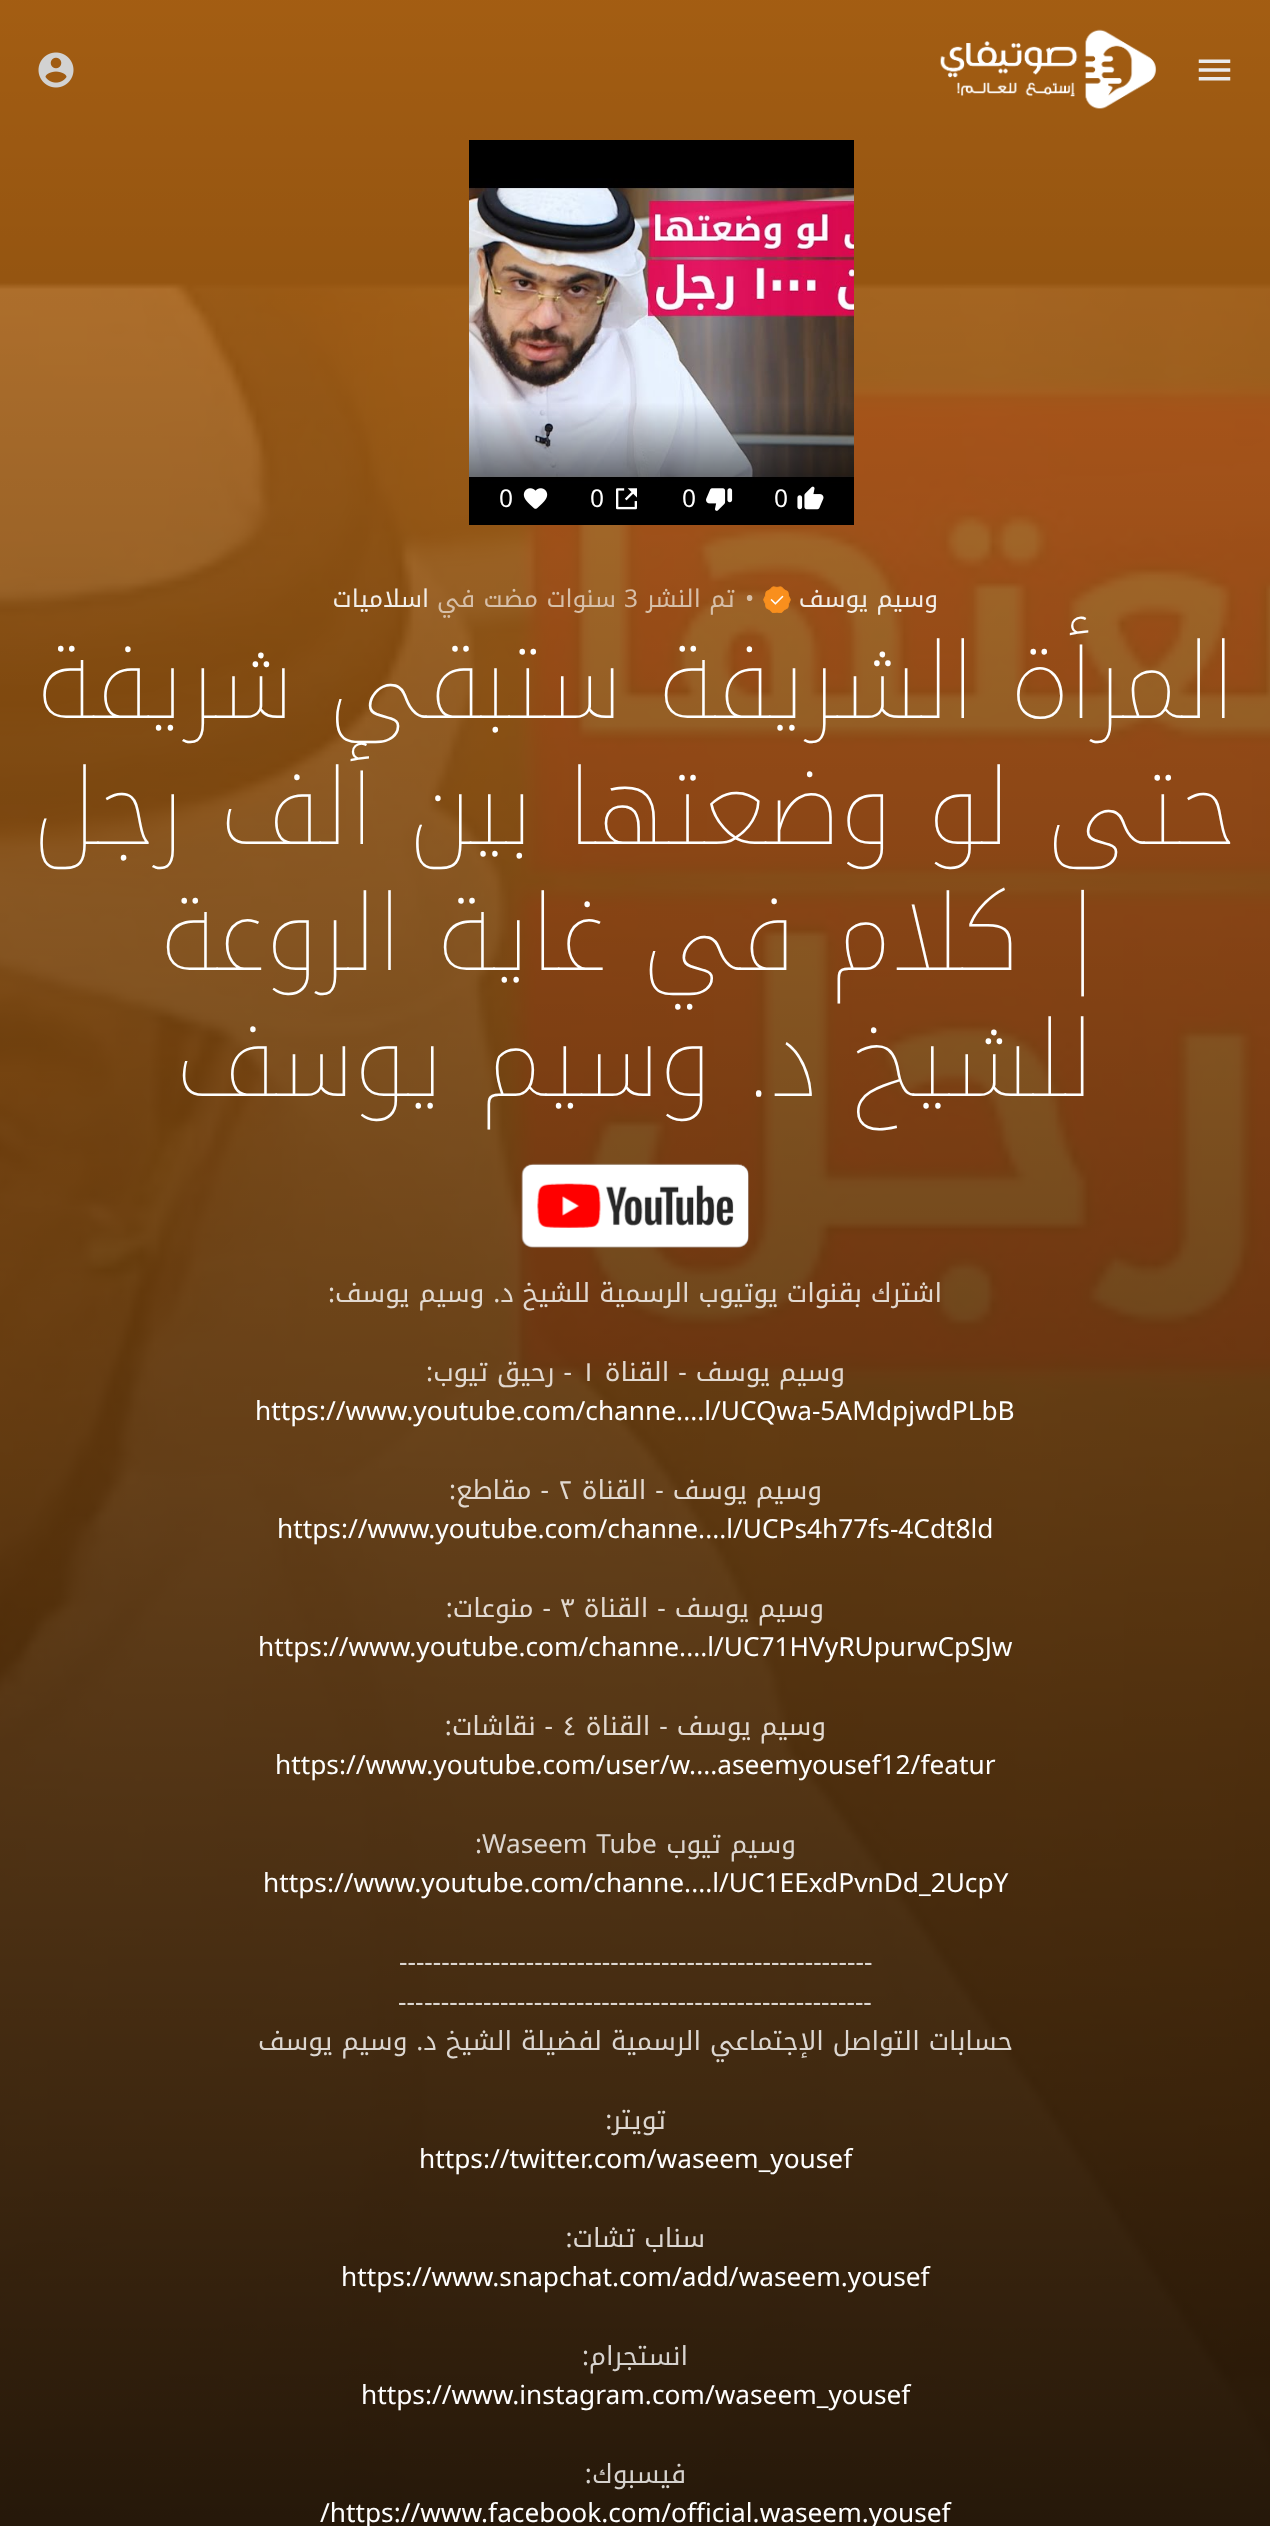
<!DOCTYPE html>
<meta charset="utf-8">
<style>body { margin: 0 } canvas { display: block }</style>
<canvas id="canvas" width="1270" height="2526"></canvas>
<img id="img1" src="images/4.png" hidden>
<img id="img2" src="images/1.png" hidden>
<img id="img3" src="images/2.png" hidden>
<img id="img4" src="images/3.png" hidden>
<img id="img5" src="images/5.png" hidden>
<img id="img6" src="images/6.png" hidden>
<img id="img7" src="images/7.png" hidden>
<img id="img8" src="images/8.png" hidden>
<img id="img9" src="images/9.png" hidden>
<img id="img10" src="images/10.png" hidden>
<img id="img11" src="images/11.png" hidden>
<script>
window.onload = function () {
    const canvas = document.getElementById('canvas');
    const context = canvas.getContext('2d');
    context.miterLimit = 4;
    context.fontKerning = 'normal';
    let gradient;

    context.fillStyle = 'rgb(249, 143, 29)';
    context.fillRect(0, 0, 1270, 2526);
    context.drawImage(document.getElementById('img1'), 0, 0, 1270, 2526);
    gradient = context.createLinearGradient(635, -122, 635, 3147);
    gradient.addColorStop(0, 'rgba(0, 0, 0, 0.2)');
    gradient.addColorStop(1, 'rgb(0, 0, 0)');
    context.fillStyle = gradient;
    context.fillRect(0, 0, 1270, 2526);
    context.drawImage(document.getElementById('img2'), 38, 52, 36, 36);
    context.drawImage(document.getElementById('img3'), 940, 29, 217, 80);
    context.drawImage(document.getElementById('img4'), 1198, 59, 33, 22);
    context.drawImage(document.getElementById('img5'), 469, 140, 385, 385);
    context.drawImage(document.getElementById('img6'), 523, 488, 25, 21);
    context.drawImage(document.getElementById('img7'), 616, 488, 21, 22);
    context.drawImage(document.getElementById('img8'), 706, 488, 27, 23);
    context.drawImage(document.getElementById('img9'), 797, 486, 27, 24);
    context.drawImage(document.getElementById('img10'), 763, 586, 28, 27);
    context.drawImage(document.getElementById('img11'), 521, 1163, 228, 85);
    context.font = '24.5px Noto Kufi Arabic';
    context.fillStyle = 'rgb(255, 255, 255)';
    context.fillText('0', 499, 507);
    context.fillText('0', 590, 507);
    context.fillText('0', 682, 507);
    context.fillText('0', 774, 507);
    context.direction = 'rtl';
    context.fillStyle = 'rgb(243, 238, 232)';
    context.fillText('اسلاميات', 429, 607);
    context.fillStyle = 'rgb(215, 191, 168)';
    context.fillText('في', 475, 607);
    context.fillText('سنوات مضت', 616, 607);
    context.direction = 'ltr';
    context.fillText('3', 624, 607);
    context.direction = 'rtl';
    context.fillText('تم النشر', 735, 607);
    context.direction = 'ltr';
    context.fillText('•', 745, 607);
    context.direction = 'rtl';
    context.fillStyle = 'rgb(243, 238, 232)';
    context.fillText('وسيم يوسف', 938, 607);
    context.font = '100 105px Noto Kufi Arabic';
    context.fillStyle = 'rgb(255, 255, 255)';
    context.fillText('المرأة الشريفة ستبقى شريفة', 1235, 718);
    context.fillText('حتى لو وضعتها بين ألف رجل', 1237, 844);
    context.fillText('| كلام في غاية الروعة', 1111, 970);
    context.fillText('للشيخ د. وسيم يوسف', 1095, 1096);
    context.font = '26.25px Noto Kufi Arabic';
    context.fillStyle = 'rgb(226, 217, 208)';
    context.fillText('اشترك بقنوات يوتيوب الرسمية للشيخ د. وسيم يوسف:', 942, 1302);
    context.fillText('- رحيق تيوب:', 572, 1381);
    context.direction = 'ltr';
    context.fillText('١', 581, 1381);
    context.direction = 'rtl';
    context.fillText('وسيم يوسف - القناة', 845, 1381);
    context.direction = 'ltr';
    context.fillStyle = 'rgb(255, 255, 255)';
    context.fillText('https://www.youtube.com/channe....l/UCQwa-5AMdpjwdPLbB', 255, 1420);
    context.direction = 'rtl';
    context.fillStyle = 'rgb(226, 217, 208)';
    context.fillText('- مقاطع:', 549, 1499);
    context.direction = 'ltr';
    context.fillText('٢', 558, 1499);
    context.direction = 'rtl';
    context.fillText('وسيم يوسف - القناة', 822, 1499);
    context.direction = 'ltr';
    context.fillStyle = 'rgb(255, 255, 255)';
    context.fillText('https://www.youtube.com/channe....l/UCPs4h77fs-4Cdt8ld', 277, 1538);
    context.direction = 'rtl';
    context.fillStyle = 'rgb(226, 217, 208)';
    context.fillText('- منوعات:', 551, 1617);
    context.direction = 'ltr';
    context.fillText('٣', 560, 1617);
    context.direction = 'rtl';
    context.fillText('وسيم يوسف - القناة', 824, 1617);
    context.direction = 'ltr';
    context.fillStyle = 'rgb(255, 255, 255)';
    context.fillText('https://www.youtube.com/channe....l/UC71HVyRUpurwCpSJw', 258, 1656);
    context.direction = 'rtl';
    context.fillStyle = 'rgb(226, 217, 208)';
    context.fillText('- نقاشات:', 553, 1735);
    context.direction = 'ltr';
    context.fillText('٤', 562, 1735);
    context.direction = 'rtl';
    context.fillText('وسيم يوسف - القناة', 826, 1735);
    context.direction = 'ltr';
    context.fillStyle = 'rgb(255, 255, 255)';
    context.fillText('https://www.youtube.com/user/w....aseemyousef12/featur', 275, 1774);
    context.fillStyle = 'rgb(220, 214, 208)';
    context.fillText(':Waseem Tube', 475, 1853);
    context.direction = 'rtl';
    context.fillText('وسيم تيوب', 796, 1853);
    context.direction = 'ltr';
    context.fillStyle = 'rgb(255, 255, 255)';
    context.fillText('https://www.youtube.com/channe....l/UC1EExdPvnDd_2UcpY', 263, 1892);
    context.fillStyle = 'rgb(220, 214, 208)';
    context.fillText('--------------------------------------------------------', 399, 1971);
    context.fillText('--- ----------------------------------------------------', 398, 2011);
    context.font = '26.25px Liberation Sans';
    context.fillText('‐', 424, 2011);
    context.direction = 'rtl';
    context.font = '26.25px Noto Kufi Arabic';
    context.fillText('حسابات التواصل الإجتماعي الرسمية لفضيلة الشيخ د. وسيم يوسف', 1013, 2050);
    context.fillText('تويتر:', 666, 2129);
    context.direction = 'ltr';
    context.fillStyle = 'rgb(255, 255, 255)';
    context.fillText('https://twitter.com/waseem_yousef', 419, 2168);
    context.direction = 'rtl';
    context.fillStyle = 'rgb(220, 214, 208)';
    context.fillText('سناب تشات:', 705, 2247);
    context.direction = 'ltr';
    context.fillStyle = 'rgb(255, 255, 255)';
    context.fillText('https://www.snapchat.com/add/waseem.yousef', 341, 2286);
    context.direction = 'rtl';
    context.fillStyle = 'rgb(214, 210, 206)';
    context.fillText('انستجرام:', 688, 2365);
    context.direction = 'ltr';
    context.fillStyle = 'rgb(255, 255, 255)';
    context.fillText('https://www.instagram.com/waseem_yousef', 361, 2404);
    context.direction = 'rtl';
    context.fillStyle = 'rgb(214, 210, 206)';
    context.fillText('فيسبوك:', 686, 2483);
    context.direction = 'ltr';
    context.fillStyle = 'rgb(255, 255, 255)';
    context.fillText('/https://www.facebook.com/official.waseem.yousef', 320, 2522);
};
</script>
